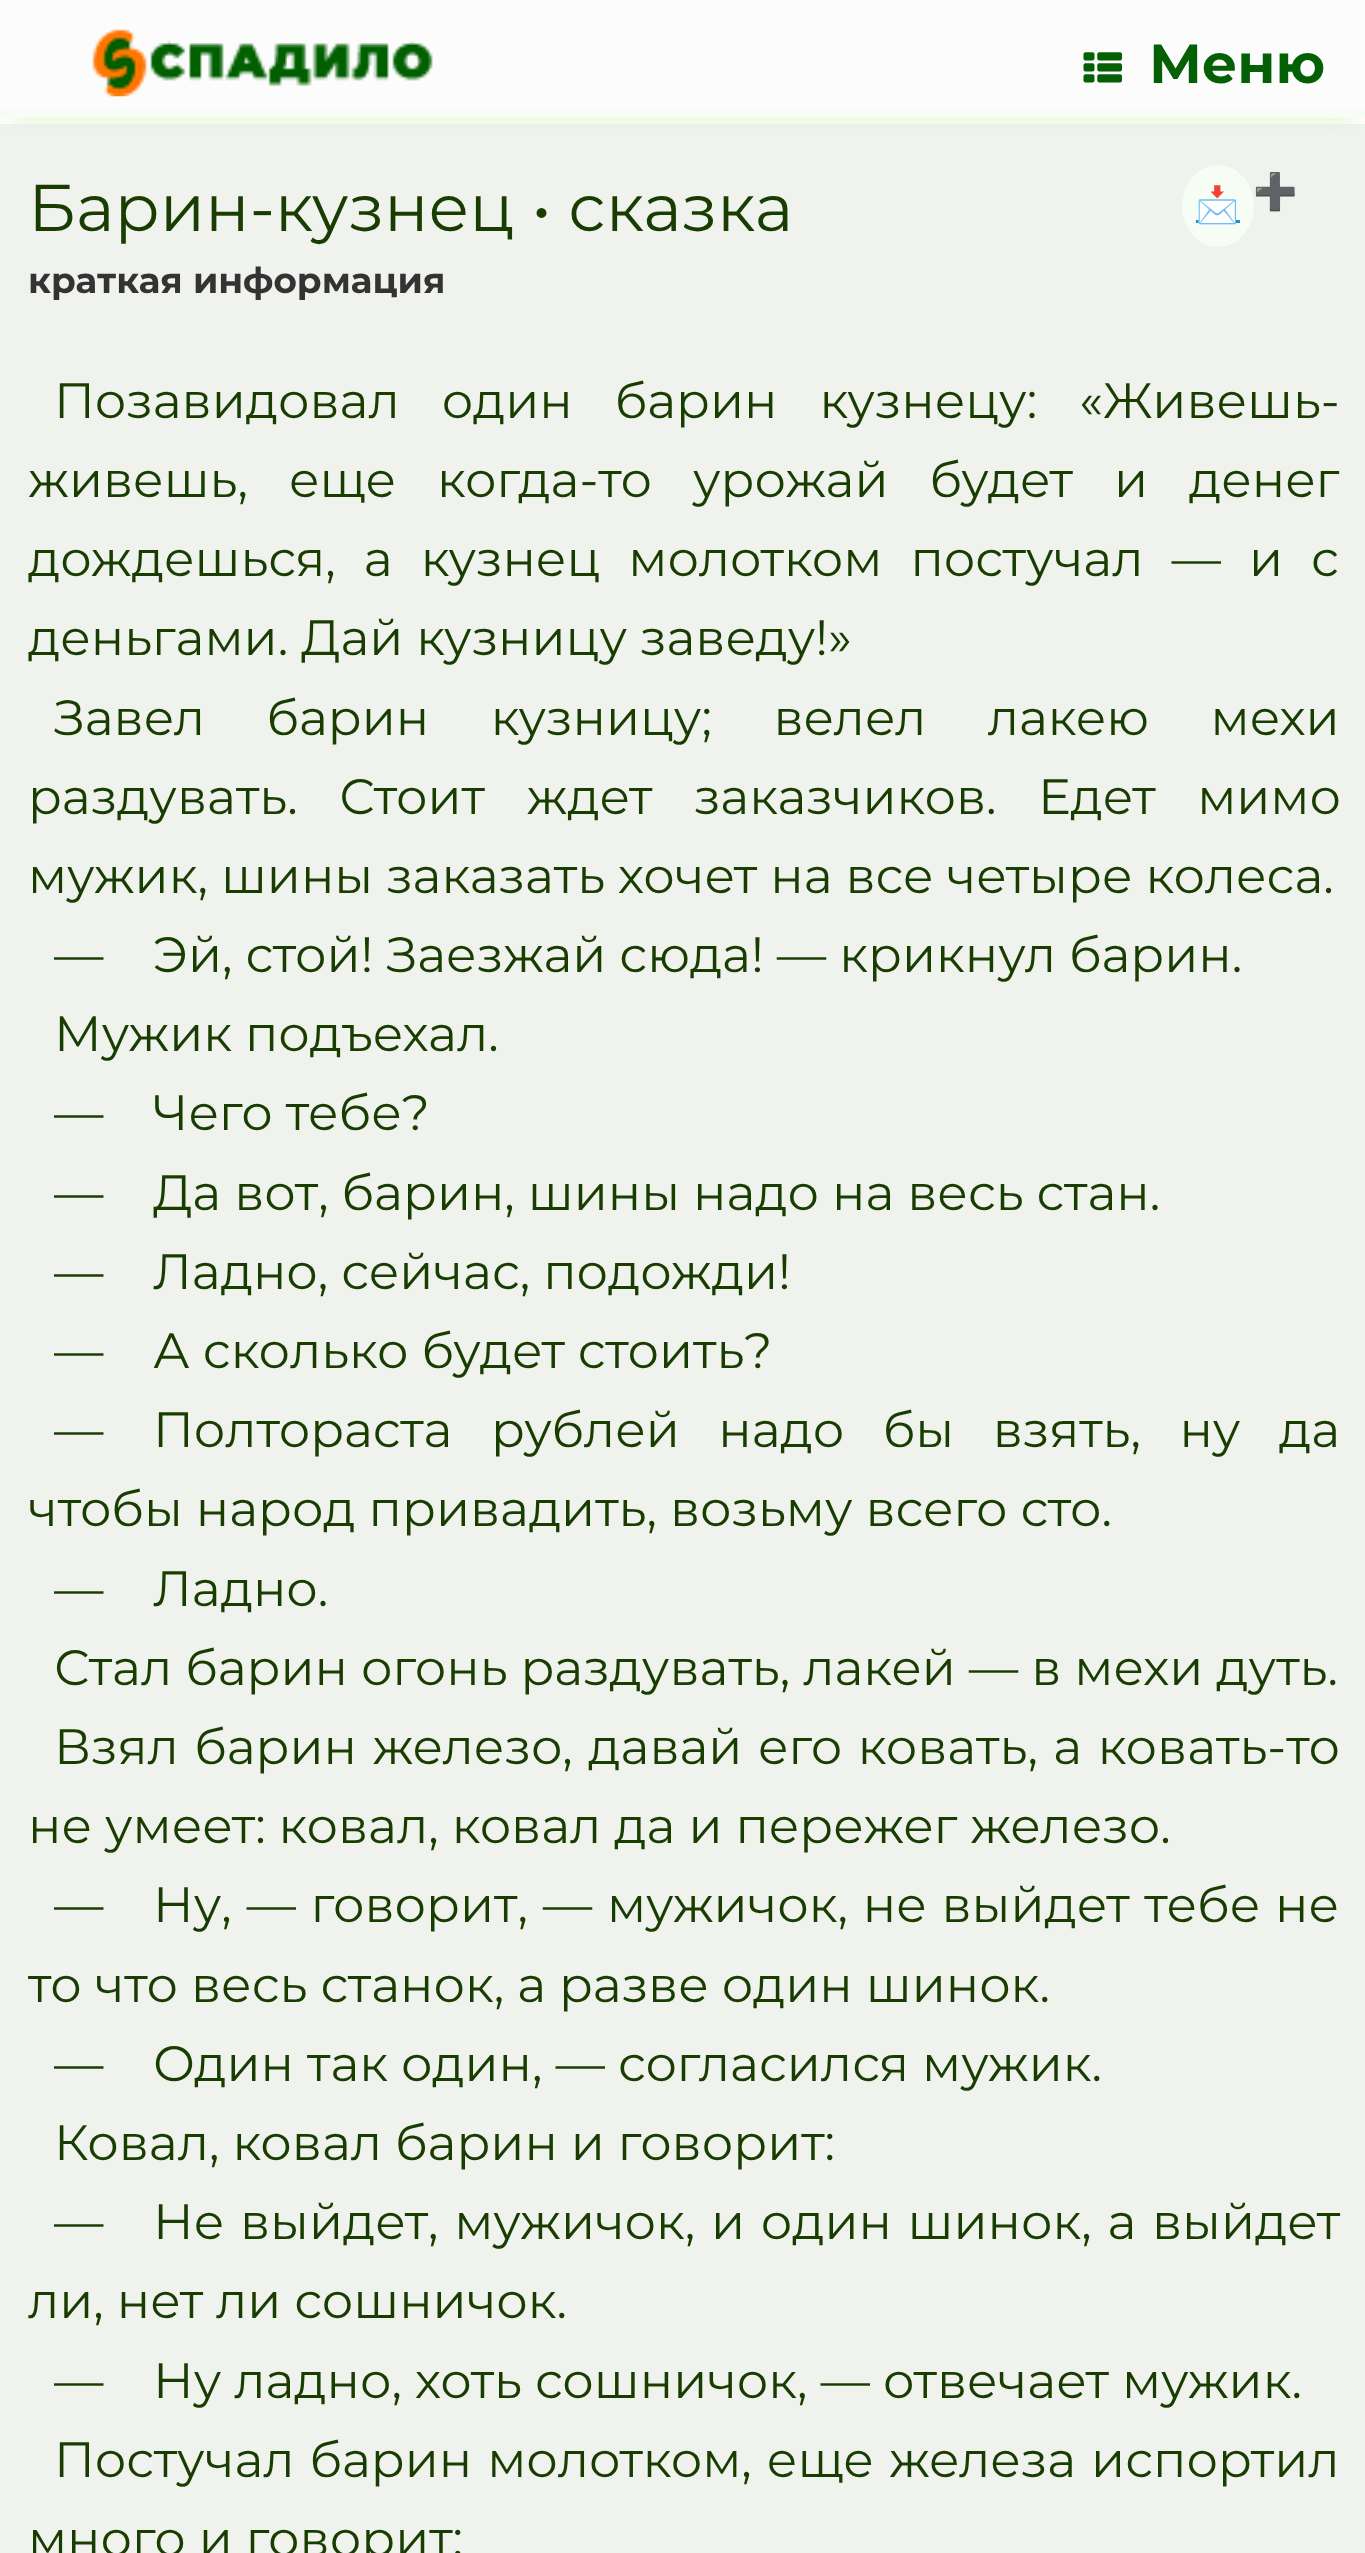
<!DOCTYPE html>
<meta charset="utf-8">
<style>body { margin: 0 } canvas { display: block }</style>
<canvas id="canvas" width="1365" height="2553"></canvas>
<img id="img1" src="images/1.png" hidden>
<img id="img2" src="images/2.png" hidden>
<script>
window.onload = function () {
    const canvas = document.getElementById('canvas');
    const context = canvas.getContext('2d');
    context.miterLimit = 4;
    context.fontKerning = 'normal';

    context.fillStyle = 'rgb(255, 253, 245)';
    context.fillRect(0, 0, 1365, 2553);
    context.fillStyle = 'rgb(239, 242, 237)';
    context.fillRect(0, 124, 1365, 2429);
    context.fillStyle = 'rgba(177, 234, 177, 0.5)';
    context.filter = 'blur(8px)';
    context.beginPath();
    context.rect(17, 33, 1333, 85);
    context.fill();
    context.filter = 'none';
    context.fillStyle = 'rgb(252, 252, 252)';
    context.fillRect(0, 0, 1365, 110);
    context.fillStyle = 'rgb(246, 253, 244)';
    context.fillRect(0, 110, 1365, 8);
    context.drawImage(document.getElementById('img1'), 92, 29, 341, 68);
    context.drawImage(document.getElementById('img2'), 1083, 52, 39, 31);
    context.font = 'bold 55px Montserrat';
    context.fillStyle = 'rgb(5, 96, 5)';
    context.fillText('Меню', 1149, 83);
    context.font = '66px Montserrat';
    context.fillStyle = 'rgb(25, 61, 0)';
    context.fillText('Барин-кузнец • cказка', 28, 231);
    context.font = 'bold 35.75px Montserrat';
    context.fillStyle = 'rgb(51, 51, 51)';
    context.fillText('краткая информация', 28, 293);
    context.font = '35.75px Noto Color Emoji';
    context.fillText('➕', 1253, 204);
    context.fillStyle = 'rgb(246, 253, 244)';
    context.beginPath();
    context.ellipse(1218, 206, 36, 41, 0, 0, 2 * Math.PI);
    context.fill();
    context.fillStyle = 'rgb(36, 140, 200)';
    context.fillRect(1196, 220, 44, 3);
    context.fillText('📩', 1195, 217);
    context.wordSpacing = '29px';
    context.font = '49.5px Montserrat';
    context.fillStyle = 'rgb(25, 61, 0)';
    context.fillText('Позавидовал один барин кузнецу: «Живешь-', 54, 418);
    context.wordSpacing = '28px';
    context.fillText('живешь, еще когда-то урожай будет и денег', 28, 497);
    context.wordSpacing = '15px';
    context.fillText('дождешься, а кузнец молотком постучал — и с', 28, 576);
    context.wordSpacing = '0px';
    context.fillText('деньгами. Дай кузницу заведу!»', 28, 655);
    context.wordSpacing = '48.5px';
    context.fillText('Завел барин кузницу; велел лакею мехи', 54, 735);
    context.wordSpacing = '28.5px';
    context.fillText('раздувать. Стоит ждет заказчиков. Едет мимо', 28, 814);
    context.wordSpacing = '0px';
    context.fillText('мужик, шины заказать хочет на все четыре колеса.', 28, 893);
    context.fillText('— Эй, стой! Заезжай сюда! — крикнул барин.', 54, 972);
    context.fillText('Мужик подъехал.', 54, 1051);
    context.fillText('— Чего тебе?', 54, 1130);
    context.fillText('— Да вот, барин, шины надо на весь стан.', 54, 1210);
    context.fillText('— Ладно, сейчас, подожди!', 54, 1289);
    context.fillText('— А сколько будет стоить?', 54, 1368);
    context.wordSpacing = '25.5px';
    context.fillText('— Полтораста рублей надо бы взять, ну да', 54, 1447);
    context.wordSpacing = '0px';
    context.fillText('чтобы народ привадить, возьму всего сто.', 28, 1526);
    context.fillText('— Ладно.', 54, 1606);
    context.fillText('Стал барин огонь раздувать, лакей — в мехи дуть.', 54, 1685);
    context.wordSpacing = '2.5px';
    context.fillText('Взял барин железо, давай его ковать, а ковать-то', 54, 1764);
    context.wordSpacing = '0px';
    context.fillText('не умеет: ковал, ковал да и пережег железо.', 28, 1843);
    context.wordSpacing = '1.75px';
    context.fillText('— Ну, — говорит, — мужичок, не выйдет тебе не', 54, 1922);
    context.wordSpacing = '0px';
    context.fillText('то что весь станок, а разве один шинок.', 28, 2002);
    context.fillText('— Один так один, — согласился мужик.', 54, 2081);
    context.fillText('Ковал, ковал барин и говорит:', 54, 2160);
    context.wordSpacing = '2.75px';
    context.fillText('— Не выйдет, мужичок, и один шинок, а выйдет', 54, 2239);
    context.wordSpacing = '0px';
    context.fillText('ли, нет ли сошничок.', 28, 2318);
    context.fillText('— Ну ладно, хоть сошничок, — отвечает мужик.', 54, 2398);
    context.wordSpacing = '2px';
    context.fillText('Постучал барин молотком, еще железа испортил', 54, 2477);
    context.wordSpacing = '0px';
    context.fillText('много и говорит:', 28, 2556);
};
</script>
